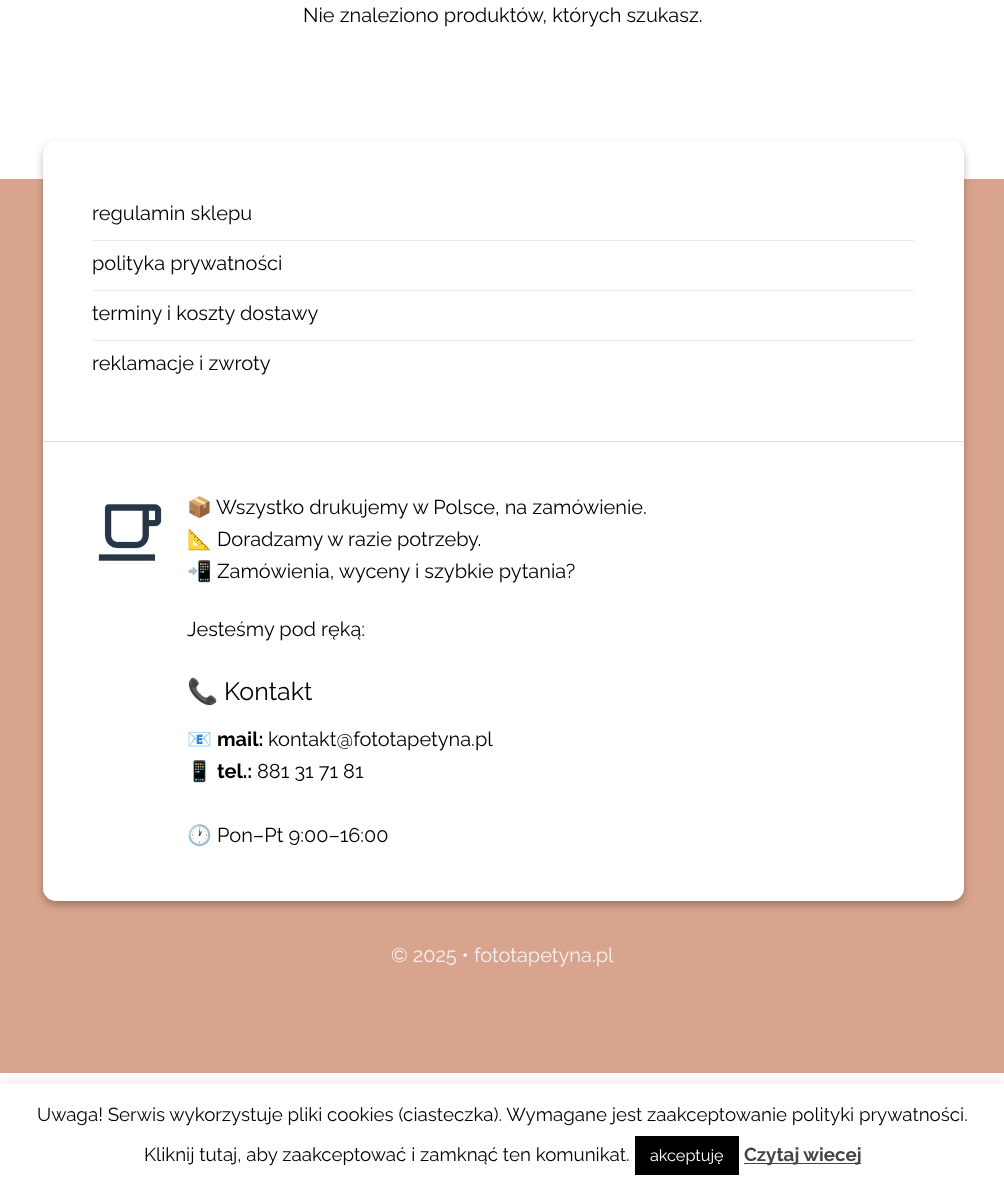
<!DOCTYPE html>
<meta charset="utf-8">
<style>body { margin: 0 } canvas { display: block }</style>
<canvas id="canvas" width="1004" height="1190"></canvas>
<img id="img1" src="images/1.png" hidden>
<script>
window.onload = function () {
    const canvas = document.getElementById('canvas');
    const context = canvas.getContext('2d');
    context.miterLimit = 4;
    context.fontKerning = 'normal';

    context.fillStyle = 'rgb(255, 255, 255)';
    context.fillRect(0, 0, 1004, 1190);
    context.fillStyle = 'rgb(217, 164, 141)';
    context.fillRect(0, 179, 1004, 894);
    context.fillStyle = 'rgba(0, 0, 0, 0.23)';
    context.filter = 'blur(4px)';
    context.beginPath();
    context.roundRect(43, 145, 921, 760, 13);
    context.fill();
    context.filter = 'none';
    context.fillStyle = 'rgba(0, 0, 0, 0.16)';
    context.filter = 'blur(4px)';
    context.beginPath();
    context.roundRect(48, 150, 911, 750, 8);
    context.fill();
    context.filter = 'none';
    context.fillStyle = 'rgb(255, 255, 255)';
    context.beginPath();
    context.roundRect(43, 141, 921, 760, 13);
    context.fill();
    context.fillStyle = 'rgb(236, 236, 236)';
    context.fillRect(93, 240, 821, 1);
    context.fillRect(93, 290, 821, 1);
    context.fillRect(93, 340, 821, 1);
    context.fillStyle = 'rgb(221, 221, 221)';
    context.fillRect(43, 441, 921, 1);
    context.drawImage(document.getElementById('img1'), 98, 504, 64, 57);
    context.fillStyle = 'rgba(172, 171, 171, 0.3)';
    context.filter = 'blur(6px)';
    context.beginPath();
    context.rect(0, 1083, 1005, 106);
    context.fill();
    context.filter = 'none';
    context.fillStyle = 'rgb(255, 255, 255)';
    context.fillRect(0, 1084, 1004, 106);
    context.fillStyle = 'rgb(0, 0, 0)';
    context.fillRect(635, 1136, 104, 39);
    context.fillStyle = 'rgb(68, 68, 68)';
    context.fillRect(744, 1163, 117, 1);
    context.font = '20px Raleway';
    context.fillStyle = 'rgb(0, 0, 0)';
    context.fillText('Nie znaleziono produktów, których szukasz.', 303, 22);
    context.fillText('regulamin sklepu', 92, 220);
    context.fillText('polityka prywatności', 92, 270);
    context.fillText('terminy i koszty dostawy', 92, 320);
    context.fillText('reklamacje i zwroty', 92, 370);
    context.font = '20px Noto Color Emoji';
    context.fillText('📦', 187, 514);
    context.font = '20px Raleway';
    context.fillText('Wszystko drukujemy w Polsce, na zamówienie.', 216, 514);
    context.font = '20px Noto Color Emoji';
    context.fillText('📐', 187, 546);
    context.font = '20px Raleway';
    context.fillText('Doradzamy w razie potrzeby.', 217, 546);
    context.font = '20px Noto Color Emoji';
    context.fillText('📲', 187, 578);
    context.font = '20px Raleway';
    context.fillText('Zamówienia, wyceny i szybkie pytania?', 217, 578);
    context.fillText('Jesteśmy pod ręką:', 187, 636);
    context.font = '25px Noto Color Emoji';
    context.fillText('📞', 187, 700);
    context.font = '25px Raleway';
    context.fillText('Kontakt', 224, 700);
    context.font = '20px Noto Color Emoji';
    context.fillText('📧', 187, 746);
    context.font = 'bold 20px Raleway';
    context.fillText('mail:', 217, 746);
    context.font = '20px Raleway';
    context.fillText('kontakt@fototapetyna.pl', 268, 746);
    context.font = '20px Noto Color Emoji';
    context.fillText('📱', 187, 778);
    context.font = 'bold 20px Raleway';
    context.fillText('tel.:', 217, 778);
    context.font = '20px Raleway';
    context.fillText('881 31 71 81', 257, 778);
    context.font = '20px Noto Color Emoji';
    context.fillText('🕐', 187, 842);
    context.font = '20px Raleway';
    context.fillText('Pon–Pt 9:00–16:00', 217, 842);
    context.fillStyle = 'rgb(241, 241, 241)';
    context.fillText('© 2025 • fototapetyna.pl', 391, 962);
    context.font = '18.75px Raleway';
    context.fillStyle = 'rgb(0, 0, 0)';
    context.fillText('Uwaga! Serwis wykorzystuje pliki cookies (ciasteczka). Wymagane jest zaakceptowanie polityki prywatności.', 37, 1121);
    context.fillText('Kliknij tutaj, aby zaakceptować i zamknąć ten komunikat.', 144, 1161);
    context.font = '16.25px Raleway';
    context.fillStyle = 'rgb(255, 255, 255)';
    context.fillText('akceptuję', 650, 1161);
    context.font = 'bold 18.75px Raleway';
    context.fillStyle = 'rgb(68, 68, 68)';
    context.fillText('Czytaj wiecej', 744, 1161);
};
</script>
